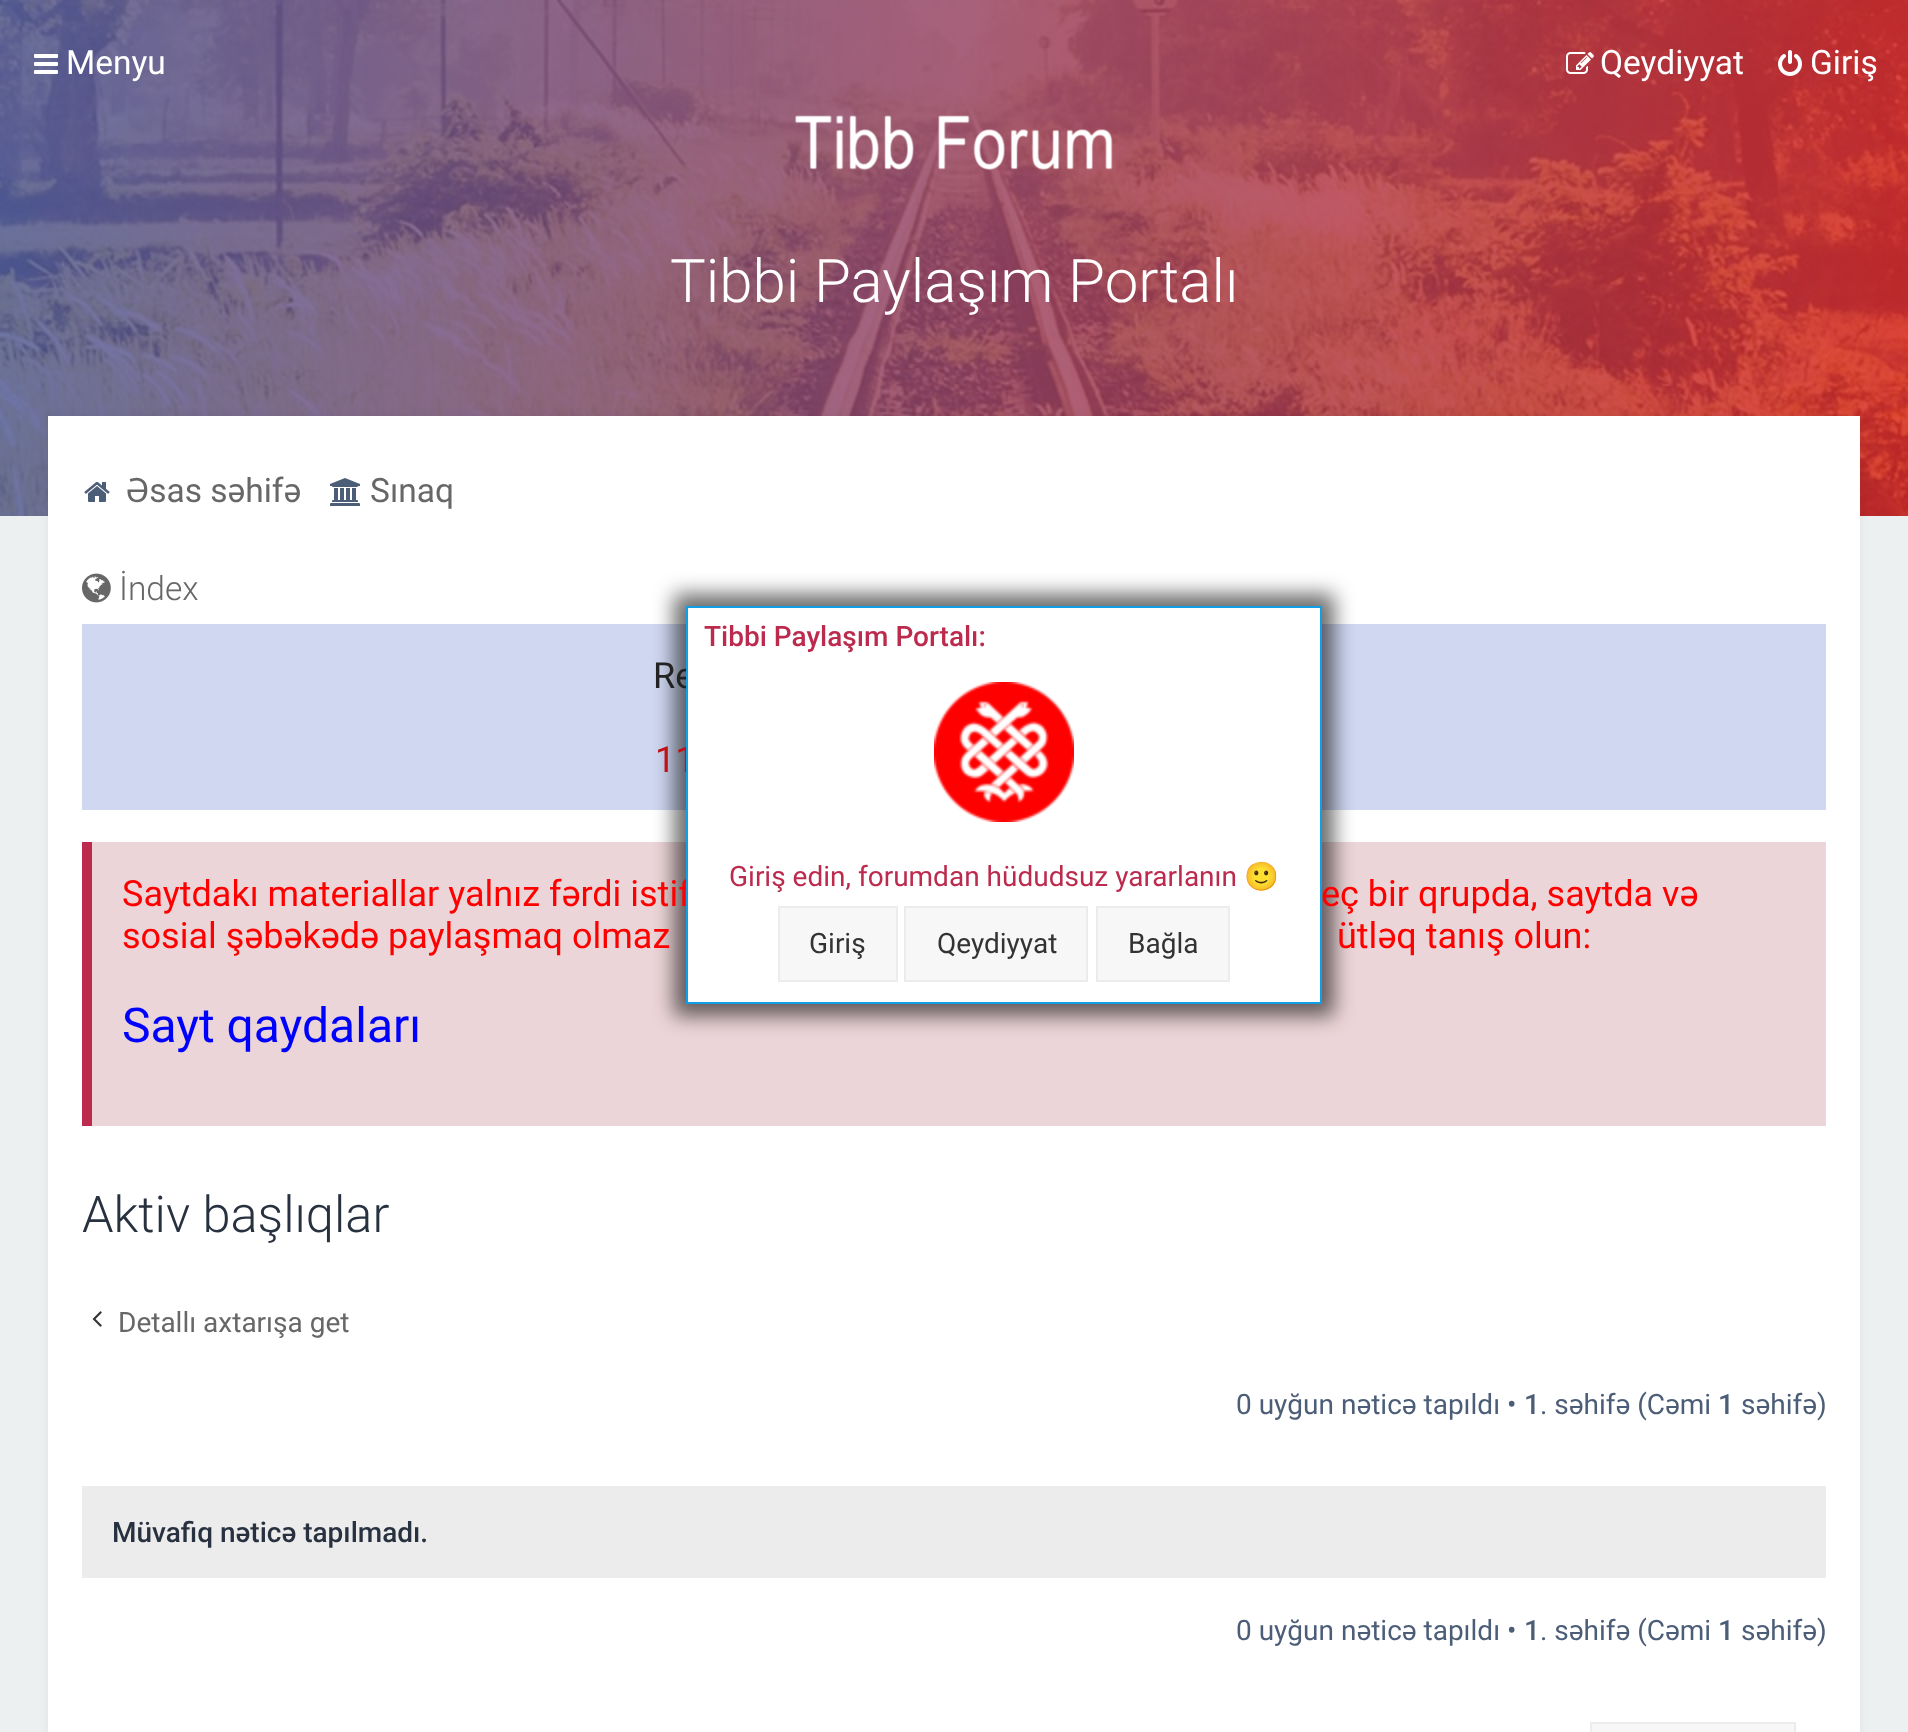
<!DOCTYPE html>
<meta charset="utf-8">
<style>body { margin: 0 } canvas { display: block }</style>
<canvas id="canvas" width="1908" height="1732"></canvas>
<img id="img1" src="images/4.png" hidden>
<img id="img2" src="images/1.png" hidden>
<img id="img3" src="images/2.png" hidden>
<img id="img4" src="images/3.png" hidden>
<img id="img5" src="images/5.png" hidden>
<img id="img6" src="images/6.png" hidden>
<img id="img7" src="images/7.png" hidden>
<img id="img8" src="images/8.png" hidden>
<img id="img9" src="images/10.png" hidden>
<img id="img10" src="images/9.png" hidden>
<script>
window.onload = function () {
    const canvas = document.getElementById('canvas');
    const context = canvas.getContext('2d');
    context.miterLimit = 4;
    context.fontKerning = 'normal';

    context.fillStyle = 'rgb(236, 240, 241)';
    context.fillRect(0, 0, 1908, 1732);
    context.drawImage(document.getElementById('img1'), 0, 0, 1908, 516);
    context.drawImage(document.getElementById('img2'), 34, 54, 24, 20);
    context.drawImage(document.getElementById('img3'), 1566, 52, 28, 22);
    context.drawImage(document.getElementById('img4'), 1778, 50, 24, 26);
    context.drawImage(document.getElementById('img5'), 795, 115, 318, 55);
    context.fillStyle = 'rgba(0, 0, 0, 0.05)';
    context.filter = 'blur(5px)';
    context.beginPath();
    context.rect(48, 416, 1812, 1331);
    context.fill();
    context.filter = 'none';
    context.fillStyle = 'rgb(255, 255, 255)';
    context.fillRect(48, 416, 1812, 1316);
    context.drawImage(document.getElementById('img6'), 84, 482, 26, 20);
    context.drawImage(document.getElementById('img7'), 330, 478, 30, 28);
    context.drawImage(document.getElementById('img8'), 82, 573, 29, 30);
    context.fillStyle = 'rgb(207, 215, 241)';
    context.fillRect(82, 624, 1744, 186);
    context.fillStyle = 'rgb(236, 213, 216)';
    context.fillRect(92, 842, 1734, 284);
    context.fillStyle = 'rgba(0, 0, 0, 0.58)';
    context.filter = 'blur(10px)';
    context.beginPath();
    context.rect(674, 594, 660, 422);
    context.fill();
    context.filter = 'none';
    context.fillStyle = 'rgb(188, 42, 77)';
    context.fillRect(82, 842, 10, 284);
    context.drawImage(document.getElementById('img9'), 92, 1311, 10, 16);
    context.fillStyle = 'rgb(236, 236, 236)';
    context.fillRect(82, 1486, 1744, 92);
    context.fillStyle = 'rgb(247, 247, 247)';
    context.beginPath();
    context.rect(1591, 1723, 204, 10);
    context.fill();
    context.strokeStyle = 'rgb(237, 236, 236)';
    context.lineWidth = 2;
    context.stroke();
    context.font = '33.5px Roboto';
    context.fillStyle = 'rgb(255, 255, 255)';
    context.fillText('Menyu', 66, 74);
    context.fillText('Qeydiyyat', 1600, 74);
    context.fillText('Giriş', 1810, 74);
    context.font = '300 60px Roboto';
    context.fillText('Tibbi Paylaşım Portalı', 670, 302);
    context.font = '33.5px Roboto';
    context.fillStyle = 'rgb(103, 103, 103)';
    context.fillText('Əsas səhifə', 126, 502);
    context.fillText('Sınaq', 370, 502);
    context.font = '300 33.5px Roboto';
    context.fillText('İndex', 119, 600);
    context.font = '36px Roboto';
    context.fillStyle = 'rgb(34, 34, 34)';
    context.fillText('Re', 653, 688);
    context.fillStyle = 'rgb(194, 16, 23)';
    context.fillText('11', 655, 772);
    context.fillStyle = 'rgb(255, 0, 0)';
    context.fillText('Saytdakı materiallar yalnız fərdi istif', 122, 906);
    context.fillStyle = 'rgb(255, 255, 255)';
    context.beginPath();
    context.rect(687, 607, 634, 396);
    context.fill();
    context.strokeStyle = 'rgb(16, 159, 229)';
    context.stroke();
    context.fillStyle = 'rgb(247, 247, 247)';
    context.beginPath();
    context.rect(1097, 907, 132, 74);
    context.fill();
    context.strokeStyle = 'rgb(237, 236, 236)';
    context.stroke();
    context.font = '28px Roboto';
    context.fillStyle = 'rgb(51, 51, 51)';
    context.fillText('Bağla', 1128, 953);
    context.fillStyle = 'rgb(247, 247, 247)';
    context.beginPath();
    context.rect(905, 907, 182, 74);
    context.fill();
    context.stroke();
    context.fillStyle = 'rgb(51, 51, 51)';
    context.fillText('Qeydiyyat', 937, 953);
    context.fillStyle = 'rgb(247, 247, 247)';
    context.beginPath();
    context.rect(779, 907, 118, 74);
    context.fill();
    context.stroke();
    context.fillStyle = 'rgb(51, 51, 51)';
    context.fillText('Giriş', 809, 953);
    context.font = '28px Noto Color Emoji';
    context.fillStyle = 'rgb(188, 42, 77)';
    context.fillText('🙂', 1244, 886);
    context.font = '28px Roboto';
    context.fillText('Giriş edin, forumdan hüdudsuz yararlanın', 729, 886);
    context.drawImage(document.getElementById('img10'), 934, 682, 140, 140);
    context.font = '500 28px Roboto';
    context.fillText('Tibbi Paylaşım Portalı:', 704, 646);
    context.font = '36px Roboto';
    context.fillStyle = 'rgb(255, 0, 0)';
    context.fillText('eç bir qrupda, saytda və', 1321, 906);
    context.fillText('sosial şəbəkədə paylaşmaq olmaz', 122, 948);
    context.fillText('ütləq tanış olun:', 1337, 948);
    context.font = '48px Roboto';
    context.fillStyle = 'rgb(0, 0, 255)';
    context.fillText('Sayt qaydaları', 122, 1042);
    context.font = '300 50.5px Roboto';
    context.fillStyle = 'rgb(40, 49, 63)';
    context.fillText('Aktiv başlıqlar', 82, 1232);
    context.font = '28px Roboto';
    context.fillStyle = 'rgb(103, 103, 103)';
    context.fillText('Detallı axtarışa get', 118, 1332);
    context.fillStyle = 'rgb(76, 93, 119)';
    context.fillText('0 uyğun nəticə tapıldı •', 1236, 1414);
    context.font = '500 28px Roboto';
    context.fillText('1', 1524, 1414);
    context.font = '28px Roboto';
    context.fillText('. səhifə (Cəmi', 1540, 1414);
    context.font = '500 28px Roboto';
    context.fillText('1', 1718, 1414);
    context.font = '28px Roboto';
    context.fillText('səhifə)', 1741, 1414);
    context.font = '500 28px Roboto';
    context.fillStyle = 'rgb(40, 49, 63)';
    context.fillText('Müvafiq nəticə tapılmadı.', 112, 1542);
    context.font = '28px Roboto';
    context.fillStyle = 'rgb(76, 93, 119)';
    context.fillText('0 uyğun nəticə tapıldı •', 1236, 1640);
    context.font = '500 28px Roboto';
    context.fillText('1', 1524, 1640);
    context.font = '28px Roboto';
    context.fillText('. səhifə (Cəmi', 1540, 1640);
    context.font = '500 28px Roboto';
    context.fillText('1', 1718, 1640);
    context.font = '28px Roboto';
    context.fillText('səhifə)', 1741, 1640);
};
</script>
